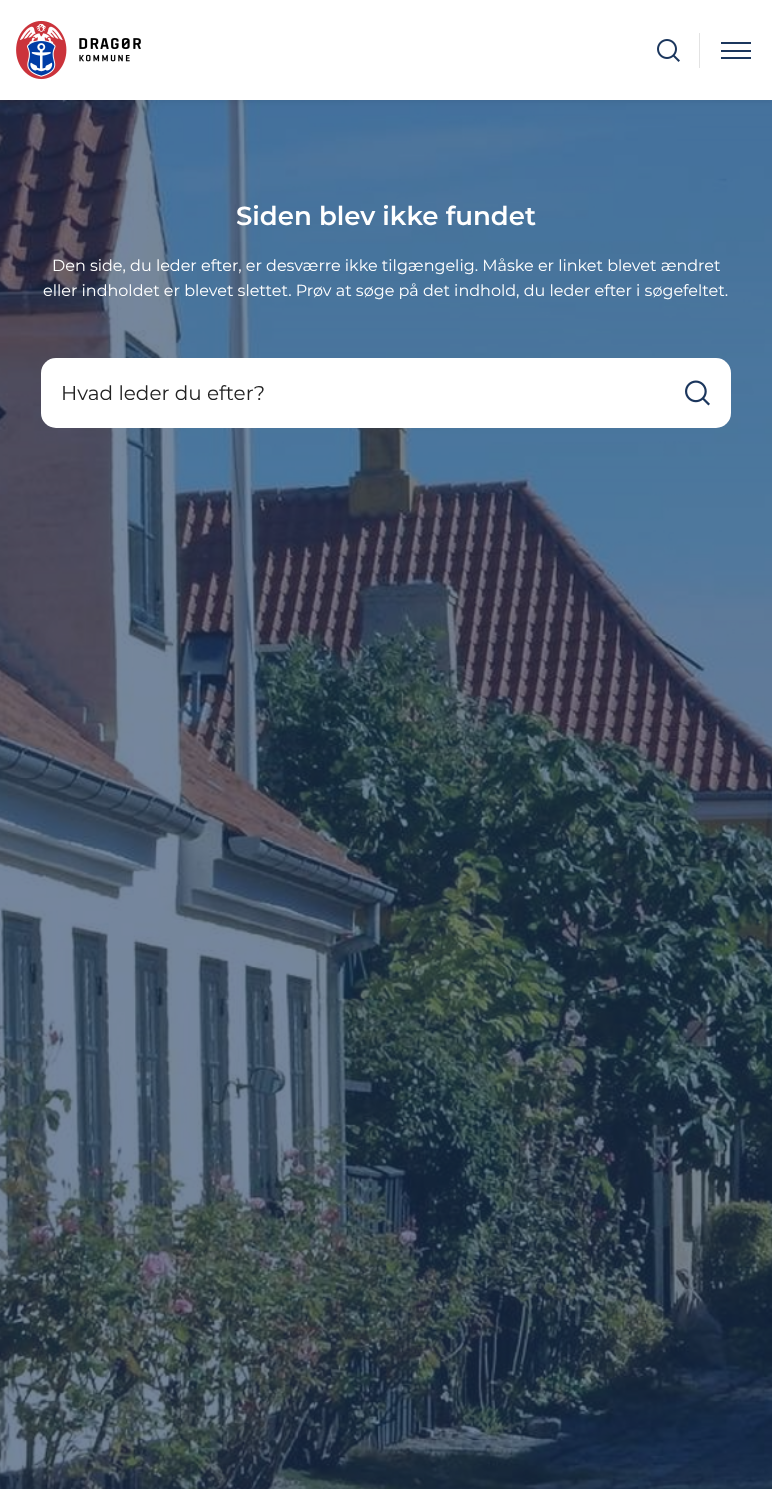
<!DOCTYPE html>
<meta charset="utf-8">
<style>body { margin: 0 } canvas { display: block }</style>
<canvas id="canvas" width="772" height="1489"></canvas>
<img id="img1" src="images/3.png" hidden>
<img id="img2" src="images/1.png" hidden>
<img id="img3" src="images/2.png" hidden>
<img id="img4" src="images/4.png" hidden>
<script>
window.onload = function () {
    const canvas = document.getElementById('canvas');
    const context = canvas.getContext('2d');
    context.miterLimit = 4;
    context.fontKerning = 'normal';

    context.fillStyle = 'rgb(255, 255, 255)';
    context.fillRect(0, 0, 772, 1489);
    context.drawImage(document.getElementById('img1'), 0, 100, 772, 1389);
    context.fillStyle = 'rgba(0, 0, 0, 0.05)';
    context.filter = 'blur(2px)';
    context.beginPath();
    context.rect(0, 2, 772, 100);
    context.fill();
    context.filter = 'none';
    context.fillStyle = 'rgb(255, 255, 255)';
    context.fillRect(0, 0, 772, 100);
    context.drawImage(document.getElementById('img2'), 16, 20, 125, 60);
    context.drawImage(document.getElementById('img3'), 657, 39, 23, 23);
    context.fillStyle = 'rgb(227, 227, 227)';
    context.fillRect(699, 33, 1, 35);
    context.fillStyle = 'rgb(27, 54, 93)';
    context.fillRect(721, 42, 30, 2);
    context.fillRect(721, 50, 30, 2);
    context.fillRect(721, 57, 30, 2);
    context.fillStyle = 'rgb(255, 255, 255)';
    context.beginPath();
    context.roundRect(41, 358, 690, 70, 15);
    context.fill();
    context.drawImage(document.getElementById('img4'), 685, 380, 25, 26);
    context.font = '600 26px Montserrat';
    context.fillText('Siden blev ikke fundet', 236, 225);
    context.font = '16px Montserrat';
    context.fillText('Den side, du leder efter, er desværre ikke tilgængelig. Måske er linket blevet ændret', 52, 271);
    context.fillText('eller indholdet er blevet slettet. Prøv at søge på det indhold, du leder efter i søgefeltet.', 43, 296);
    context.font = '20px Montserrat';
    context.fillStyle = 'rgb(34, 34, 34)';
    context.fillText('Hvad leder du efter?', 61, 400);
};
</script>
